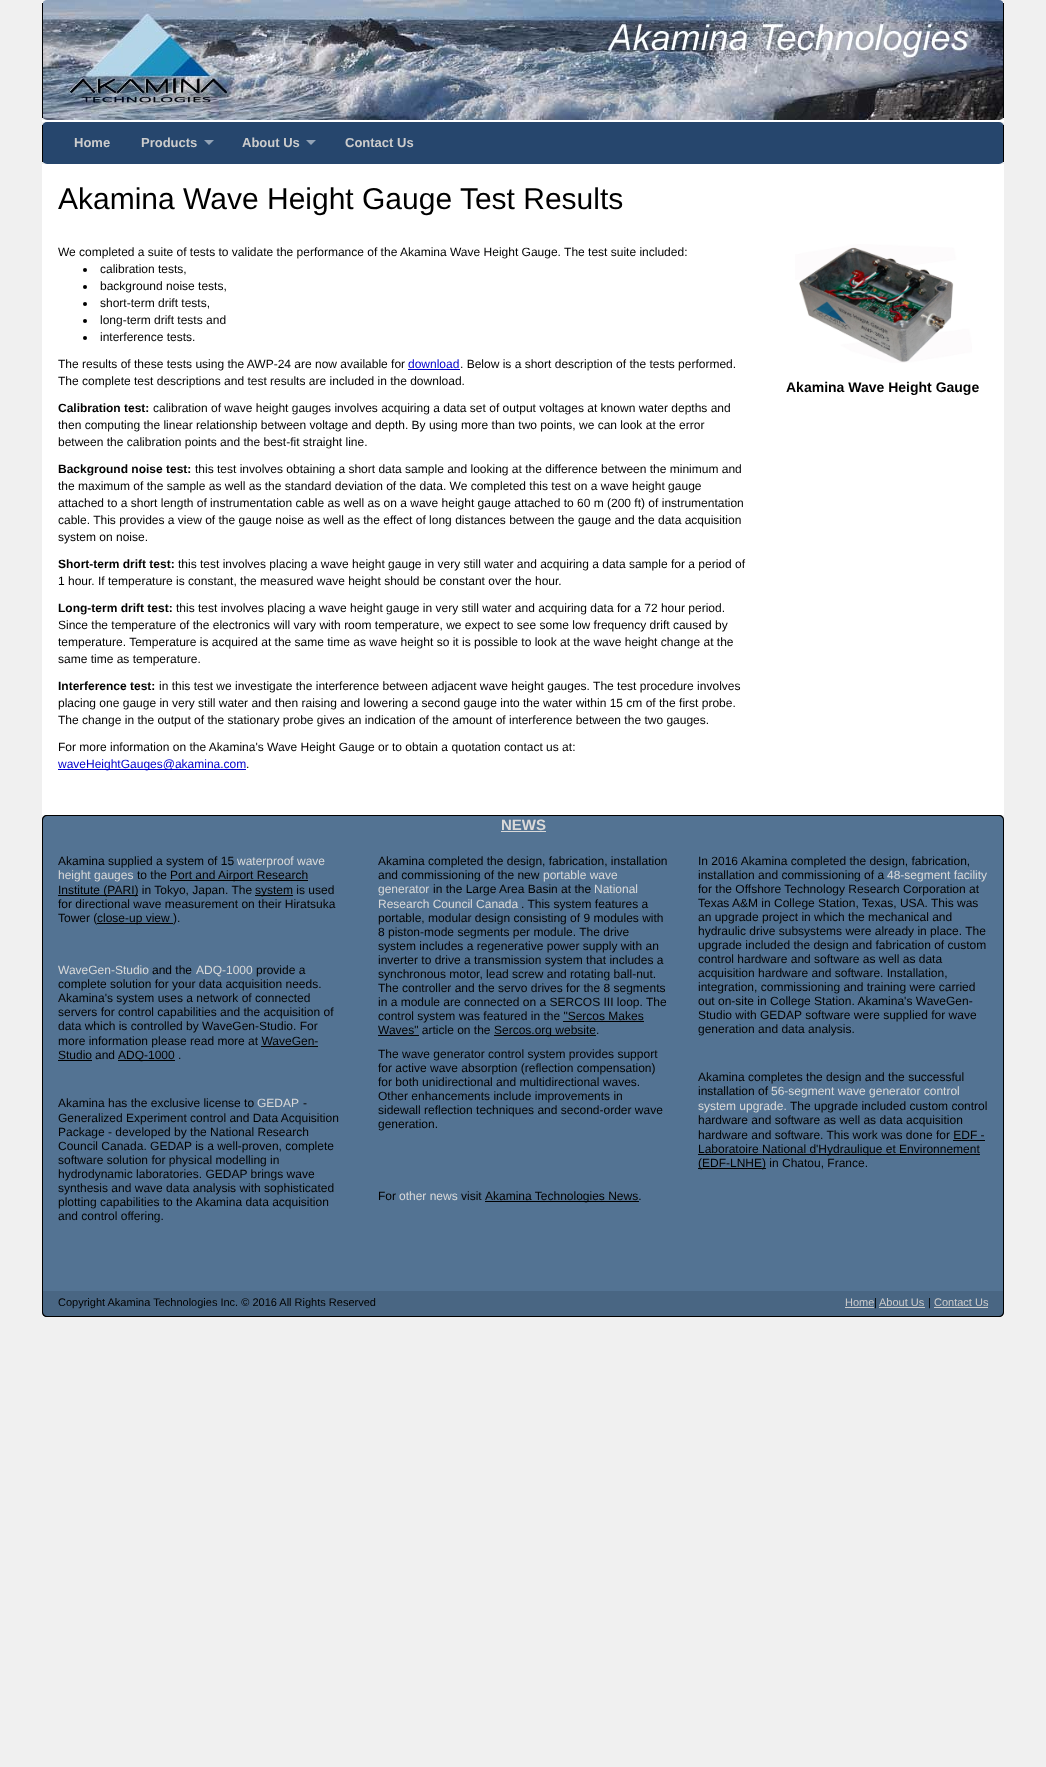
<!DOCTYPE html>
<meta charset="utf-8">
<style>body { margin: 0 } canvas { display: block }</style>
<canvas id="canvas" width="1046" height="1767"></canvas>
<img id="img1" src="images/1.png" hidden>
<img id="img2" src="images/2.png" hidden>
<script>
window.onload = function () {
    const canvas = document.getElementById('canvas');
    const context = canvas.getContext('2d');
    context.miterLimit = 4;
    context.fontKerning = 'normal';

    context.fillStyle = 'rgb(240, 240, 240)';
    context.fillRect(0, 0, 1046, 1767);
    context.fillStyle = 'rgb(255, 255, 255)';
    context.beginPath();
    context.roundRect(42, 0, 962, 120, 5);
    context.fill();
    context.drawImage(document.getElementById('img1'), 43, 0, 960, 120);
    context.fillStyle = 'rgb(0, 0, 0)';
    context.fillRect(1003, 3, 1, 115);
    context.fillRect(42, 3, 1, 115);
    context.fillStyle = 'rgb(255, 255, 255)';
    context.fillRect(42, 120, 962, 2);
    context.fillStyle = 'rgb(38, 70, 109)';
    context.beginPath();
    context.roundRect(42, 122, 962, 42, 5);
    context.fill();
    context.fillStyle = 'rgb(0, 0, 0)';
    context.fillRect(1003, 125, 1, 37);
    context.fillRect(42, 125, 1, 37);
    context.fillStyle = 'rgb(147, 163, 182)';
    context.beginPath();
    context.moveTo(204, 140);
    context.lineTo(214, 140);
    context.lineTo(209, 145);
    context.closePath();
    context.fill();
    context.beginPath();
    context.moveTo(306, 140);
    context.lineTo(316, 140);
    context.lineTo(311, 145);
    context.closePath();
    context.fill();
    context.fillStyle = 'rgb(255, 255, 255)';
    context.fillRect(42, 164, 962, 651);
    context.fillStyle = 'rgb(0, 0, 0)';
    context.beginPath();
    context.arc(85, 270, 2, 0, 2 * Math.PI);
    context.fill();
    context.beginPath();
    context.arc(85, 287, 2, 0, 2 * Math.PI);
    context.fill();
    context.beginPath();
    context.arc(85, 304, 2, 0, 2 * Math.PI);
    context.fill();
    context.beginPath();
    context.arc(85, 321, 2, 0, 2 * Math.PI);
    context.fill();
    context.beginPath();
    context.arc(85, 338, 2, 0, 2 * Math.PI);
    context.fill();
    context.fillStyle = 'rgb(0, 0, 204)';
    context.fillRect(408, 369, 52, 1);
    context.fillRect(58, 769, 188, 1);
    context.drawImage(document.getElementById('img2'), 795, 244, 177, 119);
    context.fillStyle = 'rgb(83, 115, 147)';
    context.beginPath();
    context.roundRect(42, 815, 962, 476, [5, 5, 0, 0]);
    context.fill();
    context.fillStyle = 'rgb(0, 0, 0)';
    context.beginPath();
    context.moveTo(47, 815);
    context.lineTo(999, 815);
    context.bezierCurveTo(1002, 815, 1004, 817, 1004, 820);
    context.lineTo(1004, 1291);
    context.lineTo(42, 1291);
    context.lineTo(42, 820);
    context.bezierCurveTo(42, 817, 44, 815, 47, 815);
    context.closePath();
    context.moveTo(47, 816);
    context.lineTo(999, 816);
    context.bezierCurveTo(1001, 816, 1003, 818, 1003, 820);
    context.lineTo(1003, 1291);
    context.lineTo(43, 1291);
    context.lineTo(43, 820);
    context.bezierCurveTo(43, 818, 45, 816, 47, 816);
    context.closePath();
    context.fill('evenodd');
    context.fillStyle = 'rgb(217, 217, 217)';
    context.fillRect(501, 831, 45, 1);
    context.fillStyle = 'rgb(0, 0, 0)';
    context.fillRect(170, 880, 138, 1);
    context.fillRect(58, 895, 80, 1);
    context.fillRect(255, 895, 38, 1);
    context.fillRect(97, 923, 76, 1);
    context.fillRect(261, 1046, 57, 1);
    context.fillRect(58, 1060, 34, 1);
    context.fillRect(118, 1060, 57, 1);
    context.fillRect(563, 1021, 81, 1);
    context.fillRect(378, 1035, 41, 1);
    context.fillRect(494, 1035, 102, 1);
    context.fillRect(485, 1201, 154, 1);
    context.fillRect(953, 1140, 32, 1);
    context.fillRect(698, 1154, 282, 1);
    context.fillRect(698, 1168, 68, 1);
    context.fillStyle = 'rgb(73, 102, 131)';
    context.beginPath();
    context.roundRect(42, 1291, 962, 26, [0, 0, 5, 5]);
    context.fill();
    context.fillStyle = 'rgb(0, 0, 0)';
    context.beginPath();
    context.moveTo(42, 1291);
    context.lineTo(1004, 1291);
    context.lineTo(1004, 1312);
    context.bezierCurveTo(1004, 1315, 1002, 1317, 999, 1317);
    context.lineTo(47, 1317);
    context.bezierCurveTo(44, 1317, 42, 1315, 42, 1312);
    context.closePath();
    context.moveTo(43, 1291);
    context.lineTo(1003, 1291);
    context.lineTo(1003, 1312);
    context.bezierCurveTo(1003, 1314, 1001, 1316, 999, 1316);
    context.lineTo(47, 1316);
    context.bezierCurveTo(45, 1316, 43, 1314, 43, 1312);
    context.closePath();
    context.fill('evenodd');
    context.fillStyle = 'rgb(204, 204, 204)';
    context.fillRect(845, 1307, 29, 1);
    context.fillRect(879, 1307, 46, 1);
    context.fillRect(934, 1307, 54, 1);
    context.font = 'bold 13px Liberation Sans';
    context.fillText('Home', 74, 147);
    context.fillText('Products', 141, 147);
    context.fillText('About Us', 242, 147);
    context.fillText('Contact Us', 345, 147);
    context.font = '30px Liberation Sans';
    context.fillStyle = 'rgb(0, 0, 0)';
    context.fillText('Akamina Wave Height Gauge Test Results', 58, 209);
    context.font = '12px Liberation Sans';
    context.fillText('We completed a suite of tests to validate the performance of the Akamina Wave Height Gauge. The test suite included:', 58, 256);
    context.fillText('calibration tests,', 100, 273);
    context.fillText('background noise tests,', 100, 290);
    context.fillText('short-term drift tests,', 100, 307);
    context.fillText('long-term drift tests and', 100, 324);
    context.fillText('interference tests.', 100, 341);
    context.fillText('The results of these tests using the AWP-24 are now available for', 58, 368);
    context.fillStyle = 'rgb(0, 0, 204)';
    context.fillText('download', 408, 368);
    context.fillStyle = 'rgb(0, 0, 0)';
    context.fillText('. Below is a short description of the tests performed.', 460, 368);
    context.fillText('The complete test descriptions and test results are included in the download.', 58, 385);
    context.font = 'bold 12px Liberation Sans';
    context.fillText('Calibration test:', 58, 412);
    context.font = '12px Liberation Sans';
    context.fillText('calibration of wave height gauges involves acquiring a data set of output voltages at known water depths and', 153, 412);
    context.fillText('then computing the linear relationship between voltage and depth. By using more than two points, we can look at the error', 58, 429);
    context.fillText('between the calibration points and the best-fit straight line.', 58, 446);
    context.font = 'bold 12px Liberation Sans';
    context.fillText('Background noise test:', 58, 473);
    context.font = '12px Liberation Sans';
    context.fillText('this test involves obtaining a short data sample and looking at the difference between the minimum and', 195, 473);
    context.fillText('the maximum of the sample as well as the standard deviation of the data. We completed this test on a wave height gauge', 58, 490);
    context.fillText('attached to a short length of instrumentation cable as well as on a wave height gauge attached to 60 m (200 ft) of instrumentation', 58, 507);
    context.fillText('cable. This provides a view of the gauge noise as well as the effect of long distances between the gauge and the data acquisition', 58, 524);
    context.fillText('system on noise.', 58, 541);
    context.font = 'bold 12px Liberation Sans';
    context.fillText('Short-term drift test:', 58, 568);
    context.font = '12px Liberation Sans';
    context.fillText('this test involves placing a wave height gauge in very still water and acquiring a data sample for a period of', 178, 568);
    context.fillText('1 hour. If temperature is constant, the measured wave height should be constant over the hour.', 58, 585);
    context.font = 'bold 12px Liberation Sans';
    context.fillText('Long-term drift test:', 58, 612);
    context.font = '12px Liberation Sans';
    context.fillText('this test involves placing a wave height gauge in very still water and acquiring data for a 72 hour period.', 176, 612);
    context.fillText('Since the temperature of the electronics will vary with room temperature, we expect to see some low frequency drift caused by', 58, 629);
    context.fillText('temperature. Temperature is acquired at the same time as wave height so it is possible to look at the wave height change at the', 58, 646);
    context.fillText('same time as temperature.', 58, 663);
    context.font = 'bold 12px Liberation Sans';
    context.fillText('Interference test:', 58, 690);
    context.font = '12px Liberation Sans';
    context.fillText('in this test we investigate the interference between adjacent wave height gauges. The test procedure involves', 159, 690);
    context.fillText('placing one gauge in very still water and then raising and lowering a second gauge into the water within 15 cm of the first probe.', 58, 707);
    context.fillText('The change in the output of the stationary probe gives an indication of the amount of interference between the two gauges.', 58, 724);
    context.fillText('For more information on the Akamina\'s Wave Height Gauge or to obtain a quotation contact us at:', 58, 751);
    context.fillStyle = 'rgb(0, 0, 204)';
    context.fillText('waveHeightGauges@akamina.com', 58, 768);
    context.fillStyle = 'rgb(0, 0, 0)';
    context.fillText('.', 246, 768);
    context.font = 'bold 14px Liberation Sans';
    context.fillText('Akamina Wave Height Gauge', 786, 392);
    context.font = 'bold 15px Liberation Sans';
    context.fillStyle = 'rgb(217, 217, 217)';
    context.fillText('NEWS', 501, 830);
    context.font = '12px Liberation Sans';
    context.fillStyle = 'rgb(0, 0, 0)';
    context.fillText('Akamina supplied a system of 15', 58, 865);
    context.fillStyle = 'rgb(217, 217, 217)';
    context.fillText('waterproof wave', 237, 865);
    context.fillText('height gauges', 58, 879);
    context.fillStyle = 'rgb(0, 0, 0)';
    context.fillText('to the', 137, 879);
    context.fillText('Port and Airport Research', 170, 879);
    context.fillText('Institute (PARI) in Tokyo, Japan. The', 58, 894);
    context.fillText('system is used', 255, 894);
    context.fillText('for directional wave measurement on their Hiratsuka', 58, 908);
    context.fillText('Tower (', 58, 922);
    context.fillText('close-up view ).', 97, 922);
    context.fillStyle = 'rgb(217, 217, 217)';
    context.fillText('WaveGen-Studio', 58, 974);
    context.fillStyle = 'rgb(0, 0, 0)';
    context.fillText('and the', 152, 974);
    context.fillStyle = 'rgb(217, 217, 217)';
    context.fillText('ADQ-1000', 196, 974);
    context.fillStyle = 'rgb(0, 0, 0)';
    context.fillText('provide a', 256, 974);
    context.fillText('complete solution for your data acquisition needs.', 58, 988);
    context.fillText('Akamina\'s system uses a network of connected', 58, 1002);
    context.fillText('servers for control capabilities and the acquisition of', 58, 1016);
    context.fillText('data which is controlled by WaveGen-Studio. For', 58, 1030);
    context.fillText('more information please read more at WaveGen-', 58, 1045);
    context.fillText('Studio', 58, 1059);
    context.fillText('and', 95, 1059);
    context.fillText('ADQ-1000 .', 118, 1059);
    context.fillText('Akamina has the exclusive license to', 58, 1107);
    context.fillStyle = 'rgb(217, 217, 217)';
    context.fillText('GEDAP', 257, 1107);
    context.fillStyle = 'rgb(0, 0, 0)';
    context.fillText('-', 303, 1107);
    context.fillText('Generalized Experiment control and Data Acquisition', 58, 1122);
    context.fillText('Package - developed by the National Research', 58, 1136);
    context.fillText('Council Canada. GEDAP is a well-proven, complete', 58, 1150);
    context.fillText('software solution for physical modelling in', 58, 1164);
    context.fillText('hydrodynamic laboratories. GEDAP brings wave', 58, 1178);
    context.fillText('synthesis and wave data analysis with sophisticated', 58, 1192);
    context.fillText('plotting capabilities to the Akamina data acquisition', 58, 1206);
    context.fillText('and control offering.', 58, 1220);
    context.fillText('Akamina completed the design, fabrication, installation', 378, 865);
    context.fillText('and commissioning of the new', 378, 879);
    context.fillStyle = 'rgb(217, 217, 217)';
    context.fillText('portable wave', 543, 879);
    context.fillText('generator', 378, 893);
    context.fillStyle = 'rgb(0, 0, 0)';
    context.fillText('in the Large Area Basin at the', 433, 893);
    context.fillStyle = 'rgb(217, 217, 217)';
    context.fillText('National', 594, 893);
    context.fillText('Research Council Canada', 378, 908);
    context.fillStyle = 'rgb(0, 0, 0)';
    context.fillText('. This system features a', 521, 908);
    context.fillText('portable, modular design consisting of 9 modules with', 378, 922);
    context.fillText('8 piston-mode segments per module. The drive', 378, 936);
    context.fillText('system includes a regenerative power supply with an', 378, 950);
    context.fillText('inverter to drive a transmission system that includes a', 378, 964);
    context.fillText('synchronous motor, lead screw and rotating ball-nut.', 378, 978);
    context.fillText('The controller and the servo drives for the 8 segments', 378, 992);
    context.fillText('in a module are connected on a SERCOS III loop. The', 378, 1006);
    context.fillText('control system was featured in the "Sercos Makes', 378, 1020);
    context.fillText('Waves" article on the', 378, 1034);
    context.fillText('Sercos.org website.', 494, 1034);
    context.fillText('The wave generator control system provides support', 378, 1058);
    context.fillText('for active wave absorption (reflection compensation)', 378, 1072);
    context.fillText('for both unidirectional and multidirectional waves.', 378, 1086);
    context.fillText('Other enhancements include improvements in', 378, 1100);
    context.fillText('sidewall reflection techniques and second-order wave', 378, 1114);
    context.fillText('generation.', 378, 1128);
    context.fillText('For', 378, 1200);
    context.fillStyle = 'rgb(217, 217, 217)';
    context.fillText('other news', 399, 1200);
    context.fillStyle = 'rgb(0, 0, 0)';
    context.fillText('visit', 461, 1200);
    context.fillText('Akamina Technologies News.', 485, 1200);
    context.fillText('In 2016 Akamina completed the design, fabrication,', 698, 865);
    context.fillText('installation and commissioning of a', 698, 879);
    context.fillStyle = 'rgb(217, 217, 217)';
    context.fillText('48-segment facility', 887, 879);
    context.fillStyle = 'rgb(0, 0, 0)';
    context.fillText('for the Offshore Technology Research Corporation at', 698, 893);
    context.fillText('Texas A&M in College Station, Texas, USA. This was', 698, 907);
    context.fillText('an upgrade project in which the mechanical and', 698, 921);
    context.fillText('hydraulic drive subsystems were already in place. The', 698, 935);
    context.fillText('upgrade included the design and fabrication of custom', 698, 949);
    context.fillText('control hardware and software as well as data', 698, 963);
    context.fillText('acquisition hardware and software. Installation,', 698, 977);
    context.fillText('integration, commissioning and training were carried', 698, 991);
    context.fillText('out on-site in College Station. Akamina\'s WaveGen-', 698, 1005);
    context.fillText('Studio with GEDAP software were supplied for wave', 698, 1019);
    context.fillText('generation and data analysis.', 698, 1033);
    context.fillText('Akamina completes the design and the successful', 698, 1081);
    context.fillText('installation of', 698, 1095);
    context.fillStyle = 'rgb(217, 217, 217)';
    context.fillText('56-segment wave generator control', 771, 1095);
    context.fillText('system upgrade.', 698, 1110);
    context.fillStyle = 'rgb(0, 0, 0)';
    context.fillText('The upgrade included custom control', 790, 1110);
    context.fillText('hardware and software as well as data acquisition', 698, 1124);
    context.fillText('hardware and software. This work was done for EDF -', 698, 1139);
    context.fillText('Laboratoire National d\'Hydraulique et Environnement', 698, 1153);
    context.fillText('(EDF-LNHE) in Chatou, France.', 698, 1167);
    context.font = '11px Liberation Sans';
    context.fillText('Copyright Akamina Technologies Inc. © 2016 All Rights Reserved', 58, 1306);
    context.fillStyle = 'rgb(204, 204, 204)';
    context.fillText('Home', 845, 1306);
    context.fillStyle = 'rgb(0, 0, 0)';
    context.fillText('|', 874, 1306);
    context.fillStyle = 'rgb(204, 204, 204)';
    context.fillText('About Us', 879, 1306);
    context.fillStyle = 'rgb(0, 0, 0)';
    context.fillText('|', 928, 1306);
    context.fillStyle = 'rgb(204, 204, 204)';
    context.fillText('Contact Us', 934, 1306);
};
</script>
